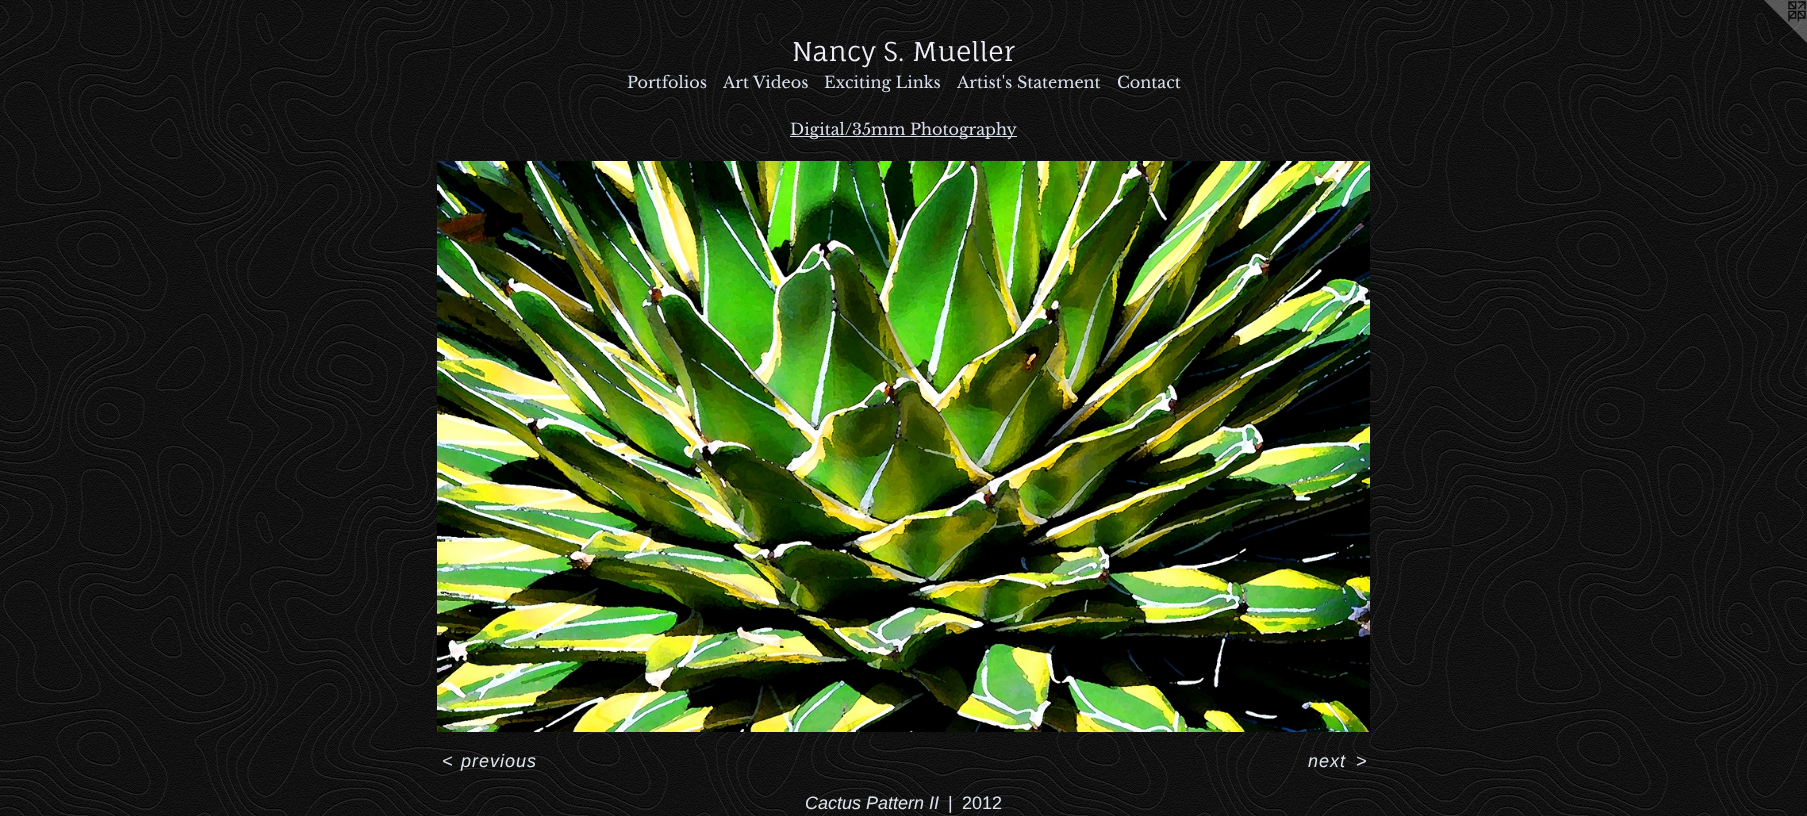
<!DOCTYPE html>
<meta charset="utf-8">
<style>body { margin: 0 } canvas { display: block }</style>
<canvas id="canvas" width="1807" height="816"></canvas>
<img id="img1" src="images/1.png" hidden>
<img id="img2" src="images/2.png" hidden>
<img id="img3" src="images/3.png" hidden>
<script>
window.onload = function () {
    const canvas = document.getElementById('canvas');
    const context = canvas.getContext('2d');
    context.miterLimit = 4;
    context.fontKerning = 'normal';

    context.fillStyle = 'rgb(255, 255, 255)';
    context.fillRect(0, 0, 1807, 816);
    context.drawImage(document.getElementById('img1'), 0, 0, 1807, 816);
    context.drawImage(document.getElementById('img2'), 1764, 0, 43, 43);
    context.fillStyle = 'rgb(217, 223, 237)';
    context.fillRect(790, 136, 227, 1);
    context.drawImage(document.getElementById('img3'), 437, 161, 933, 571);
    context.font = '26px Fauna One';
    context.fillStyle = 'rgb(240, 241, 249)';
    context.fillText('Nancy S. Mueller', 792, 61);
    context.font = '16px Libre Baskerville';
    context.fillStyle = 'rgb(217, 223, 237)';
    context.fillText('Portfolios', 627, 88);
    context.fillText('Art Videos', 723, 88);
    context.fillText('Exciting Links', 824, 88);
    context.fillText('Artist\'s Statement', 957, 88);
    context.fillText('Contact', 1117, 88);
    context.fillText('Digital/35mm Photography', 790, 135);
    context.letterSpacing = '1px';
    context.font = 'italic 18px Liberation Sans';
    context.fillStyle = 'rgb(223, 228, 236)';
    context.fillText('<', 442, 767);
    context.fillText('previous', 461, 767);
    context.fillText('next', 1308, 767);
    context.fillText('>', 1356, 767);
    context.letterSpacing = '0px';
    context.fillText('Cactus Pattern II', 805, 809);
    context.font = '18px Liberation Sans';
    context.fillText('|', 948, 809);
    context.fillText('2012', 962, 809);
};
</script>
